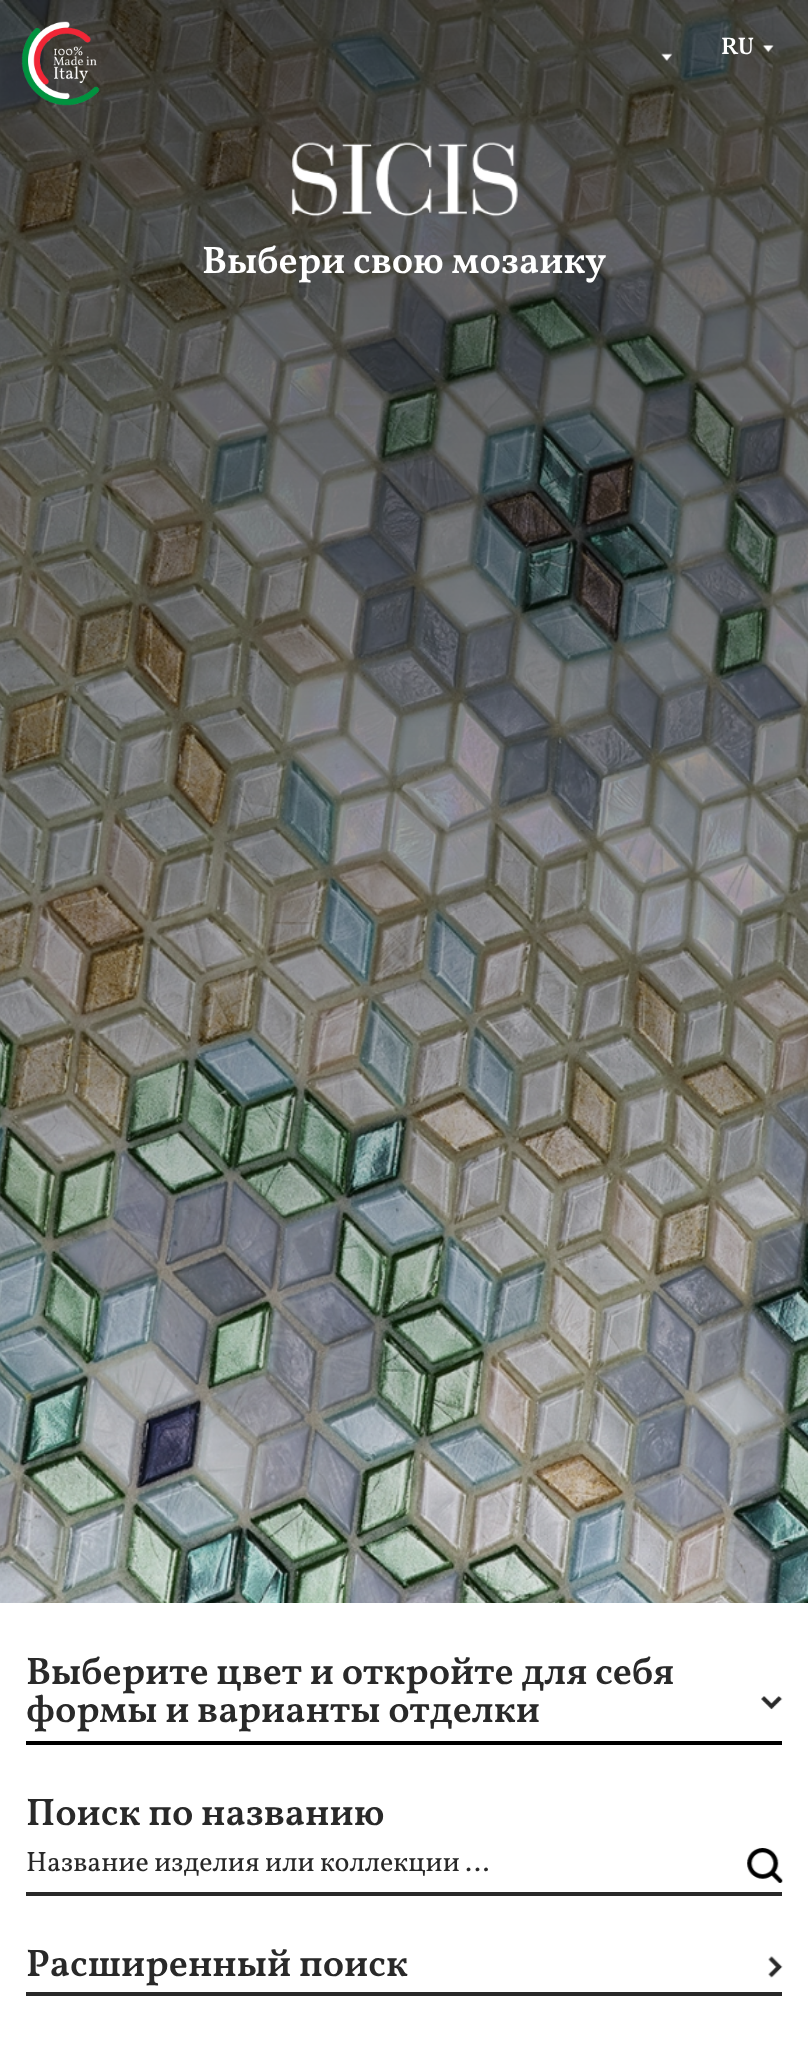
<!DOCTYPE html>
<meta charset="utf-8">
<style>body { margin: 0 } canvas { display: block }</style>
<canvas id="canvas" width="808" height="2056"></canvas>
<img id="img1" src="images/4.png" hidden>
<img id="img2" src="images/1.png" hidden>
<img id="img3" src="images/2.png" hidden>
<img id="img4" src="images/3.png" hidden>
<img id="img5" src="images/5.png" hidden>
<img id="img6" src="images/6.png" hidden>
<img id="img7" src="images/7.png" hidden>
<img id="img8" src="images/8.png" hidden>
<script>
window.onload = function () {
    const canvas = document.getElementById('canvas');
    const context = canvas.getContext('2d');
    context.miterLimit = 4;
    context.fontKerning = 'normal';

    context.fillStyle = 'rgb(255, 255, 255)';
    context.fillRect(0, 0, 808, 2056);
    context.drawImage(document.getElementById('img1'), 0, 0, 808, 1603);
    context.drawImage(document.getElementById('img2'), 762, 45, 12, 8);
    context.drawImage(document.getElementById('img3'), 661, 53, 12, 8);
    context.drawImage(document.getElementById('img4'), 21, 21, 79, 85);
    context.drawImage(document.getElementById('img5'), 291, 142, 227, 75);
    context.fillStyle = 'rgb(0, 0, 0)';
    context.fillRect(26, 1741, 756, 4);
    context.drawImage(document.getElementById('img6'), 761, 1696, 22, 14);
    context.fillStyle = 'rgb(41, 41, 41)';
    context.fillRect(26, 1892, 756, 4);
    context.drawImage(document.getElementById('img7'), 747, 1848, 36, 35);
    context.fillRect(26, 1992, 756, 4);
    context.drawImage(document.getElementById('img8'), 768, 1956, 15, 22);
    context.font = '600 24px Vollkorn';
    context.fillStyle = 'rgb(255, 255, 255)';
    context.fillText('RU', 721, 54);
    context.font = '600 38.5px Vollkorn';
    context.fillText('Выбери свою мозаику', 202, 273);
    context.fillStyle = 'rgb(41, 41, 41)';
    context.fillText('Выберите цвет и откройте для себя', 26, 1684);
    context.fillText('формы и варианты отделки', 26, 1722);
    context.fillText('Поиск по названию', 26, 1825);
    context.font = '28px Vollkorn';
    context.fillText('Название изделия или коллекции …', 26, 1871);
    context.font = '600 38.5px Vollkorn';
    context.fillText('Расширенный поиск', 26, 1976);
};
</script>
